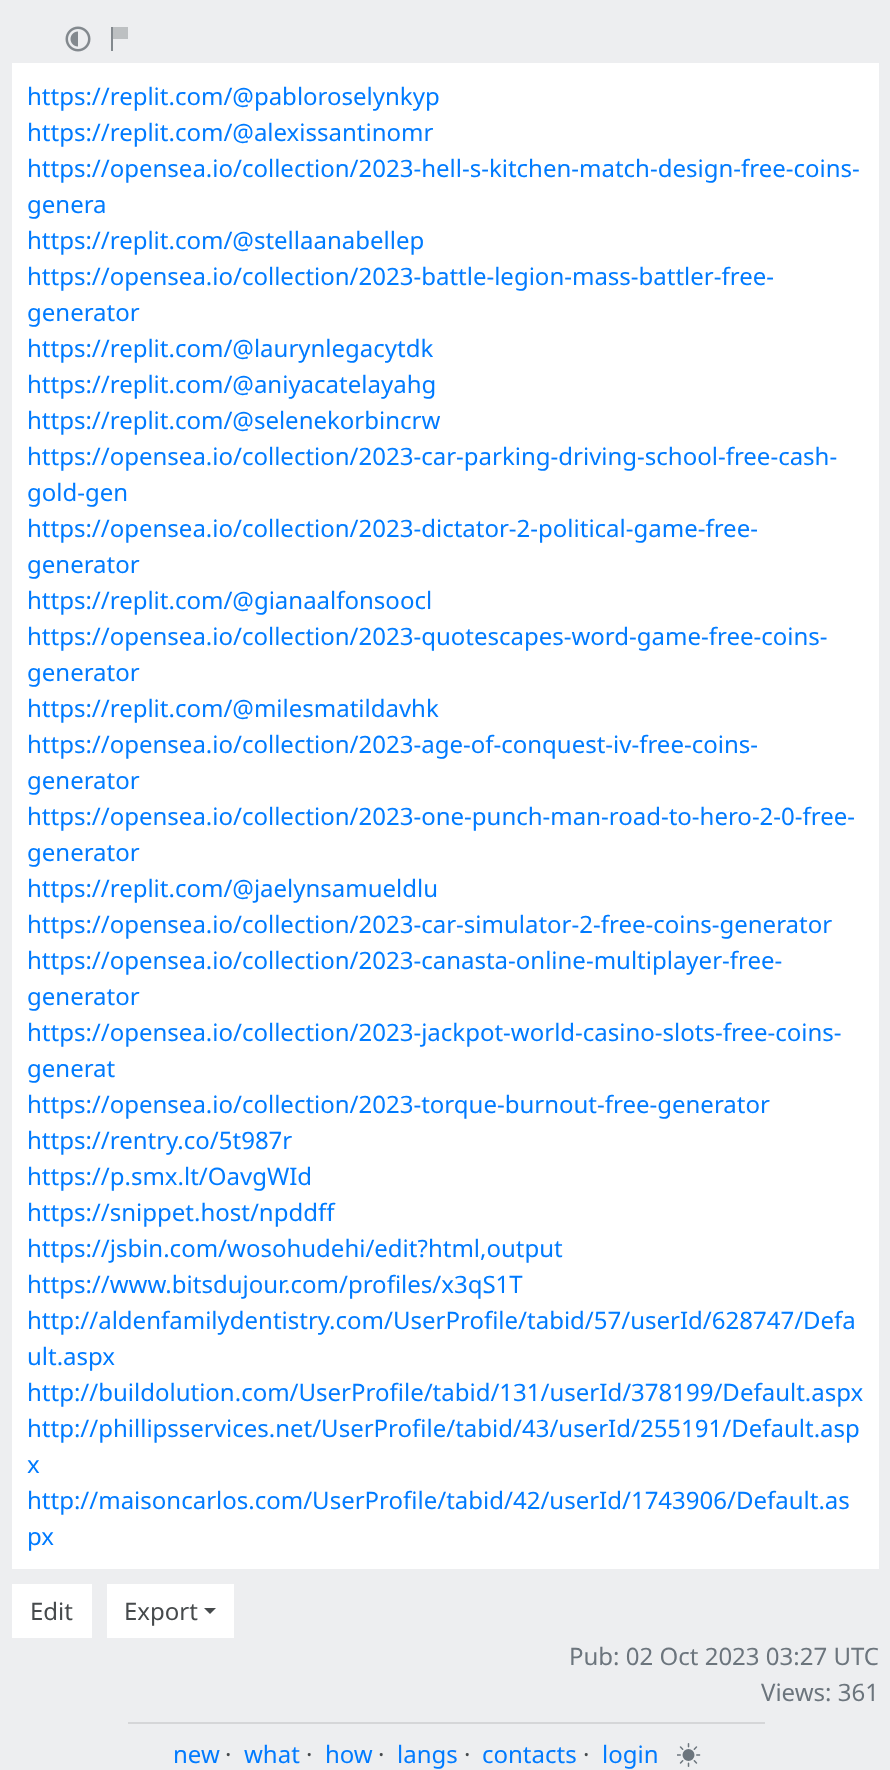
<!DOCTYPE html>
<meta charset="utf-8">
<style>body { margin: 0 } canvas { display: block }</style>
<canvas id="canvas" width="890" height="1770"></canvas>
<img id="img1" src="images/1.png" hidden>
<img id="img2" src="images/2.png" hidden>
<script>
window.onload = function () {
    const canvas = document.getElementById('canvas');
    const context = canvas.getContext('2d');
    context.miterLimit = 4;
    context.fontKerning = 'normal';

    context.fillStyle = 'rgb(237, 238, 240)';
    context.fillRect(0, 0, 890, 1770);
    context.drawImage(document.getElementById('img1'), 65, 26, 26, 26);
    context.fillStyle = 'rgb(131, 137, 142)';
    context.fillRect(111, 27, 2, 24);
    context.fillStyle = 'rgb(189, 192, 194)';
    context.fillRect(113, 27, 15, 12);
    context.fillStyle = 'rgb(255, 255, 255)';
    context.fillRect(12, 63, 867, 1506);
    context.fillRect(12, 1584, 80, 54);
    context.fillRect(107, 1584, 127, 54);
    context.fillStyle = 'rgb(70, 74, 76)';
    context.beginPath();
    context.moveTo(204, 1608);
    context.lineTo(216, 1608);
    context.lineTo(210, 1614);
    context.closePath();
    context.fill();
    context.fillStyle = 'rgb(213, 214, 216)';
    context.fillRect(128, 1722, 637, 2);
    context.drawImage(document.getElementById('img2'), 677, 1743, 24, 24);
    context.font = '24px Noto Sans';
    context.fillStyle = 'rgb(0, 123, 255)';
    context.fillText('https://replit.com/@pabloroselynkyp', 27, 105);
    context.fillText('https://replit.com/@alexissantinomr', 27, 141);
    context.fillText('https://opensea.io/collection/2023-hell-s-kitchen-match-design-free-coins-', 27, 177);
    context.fillText('genera', 27, 213);
    context.fillText('https://replit.com/@stellaanabellep', 27, 249);
    context.fillText('https://opensea.io/collection/2023-battle-legion-mass-battler-free-', 27, 285);
    context.fillText('generator', 27, 321);
    context.fillText('https://replit.com/@laurynlegacytdk', 27, 357);
    context.fillText('https://replit.com/@aniyacatelayahg', 27, 393);
    context.fillText('https://replit.com/@selenekorbincrw', 27, 429);
    context.fillText('https://opensea.io/collection/2023-car-parking-driving-school-free-cash-', 27, 465);
    context.fillText('gold-gen', 27, 501);
    context.fillText('https://opensea.io/collection/2023-dictator-2-political-game-free-', 27, 537);
    context.fillText('generator', 27, 573);
    context.fillText('https://replit.com/@gianaalfonsoocl', 27, 609);
    context.fillText('https://opensea.io/collection/2023-quotescapes-word-game-free-coins-', 27, 645);
    context.fillText('generator', 27, 681);
    context.fillText('https://replit.com/@milesmatildavhk', 27, 717);
    context.fillText('https://opensea.io/collection/2023-age-of-conquest-iv-free-coins-', 27, 753);
    context.fillText('generator', 27, 789);
    context.fillText('https://opensea.io/collection/2023-one-punch-man-road-to-hero-2-0-free-', 27, 825);
    context.fillText('generator', 27, 861);
    context.fillText('https://replit.com/@jaelynsamueldlu', 27, 897);
    context.fillText('https://opensea.io/collection/2023-car-simulator-2-free-coins-generator', 27, 933);
    context.fillText('https://opensea.io/collection/2023-canasta-online-multiplayer-free-', 27, 969);
    context.fillText('generator', 27, 1005);
    context.fillText('https://opensea.io/collection/2023-jackpot-world-casino-slots-free-coins-', 27, 1041);
    context.fillText('generat', 27, 1077);
    context.fillText('https://opensea.io/collection/2023-torque-burnout-free-generator', 27, 1113);
    context.fillText('https://rentry.co/5t987r', 27, 1149);
    context.fillText('https://p.smx.lt/OavgWId', 27, 1185);
    context.fillText('https://snippet.host/npddff', 27, 1221);
    context.fillText('https://jsbin.com/wosohudehi/edit?html,output', 27, 1257);
    context.fillText('https://www.bitsdujour.com/profiles/x3qS1T', 27, 1293);
    context.fillText('http://aldenfamilydentistry.com/UserProfile/tabid/57/userId/628747/Defa', 27, 1329);
    context.fillText('ult.aspx', 27, 1365);
    context.fillText('http://buildolution.com/UserProfile/tabid/131/userId/378199/Default.aspx', 27, 1401);
    context.fillText('http://phillipsservices.net/UserProfile/tabid/43/userId/255191/Default.asp', 27, 1437);
    context.fillText('x', 27, 1473);
    context.fillText('http://maisoncarlos.com/UserProfile/tabid/42/userId/1743906/Default.as', 27, 1509);
    context.fillText('px', 27, 1545);
    context.fillStyle = 'rgb(70, 74, 76)';
    context.fillText('Edit', 30, 1620);
    context.fillText('Export', 124, 1620);
    context.fillStyle = 'rgb(108, 117, 125)';
    context.fillText('Pub: 02 Oct 2023 03:27 UTC', 569, 1665);
    context.fillText('Views: 361', 761, 1701);
    context.fillStyle = 'rgb(0, 123, 255)';
    context.fillText('new', 173, 1763);
    context.fillStyle = 'rgb(70, 74, 76)';
    context.fillText('·', 225, 1763);
    context.fillStyle = 'rgb(0, 123, 255)';
    context.fillText('what', 244, 1763);
    context.fillStyle = 'rgb(70, 74, 76)';
    context.fillText('·', 306, 1763);
    context.fillStyle = 'rgb(0, 123, 255)';
    context.fillText('how', 325, 1763);
    context.fillStyle = 'rgb(70, 74, 76)';
    context.fillText('·', 378, 1763);
    context.fillStyle = 'rgb(0, 123, 255)';
    context.fillText('langs', 397, 1763);
    context.fillStyle = 'rgb(70, 74, 76)';
    context.fillText('·', 464, 1763);
    context.fillStyle = 'rgb(0, 123, 255)';
    context.fillText('contacts', 482, 1763);
    context.fillStyle = 'rgb(70, 74, 76)';
    context.fillText('·', 583, 1763);
    context.fillStyle = 'rgb(0, 123, 255)';
    context.fillText('login', 602, 1763);
};
</script>
